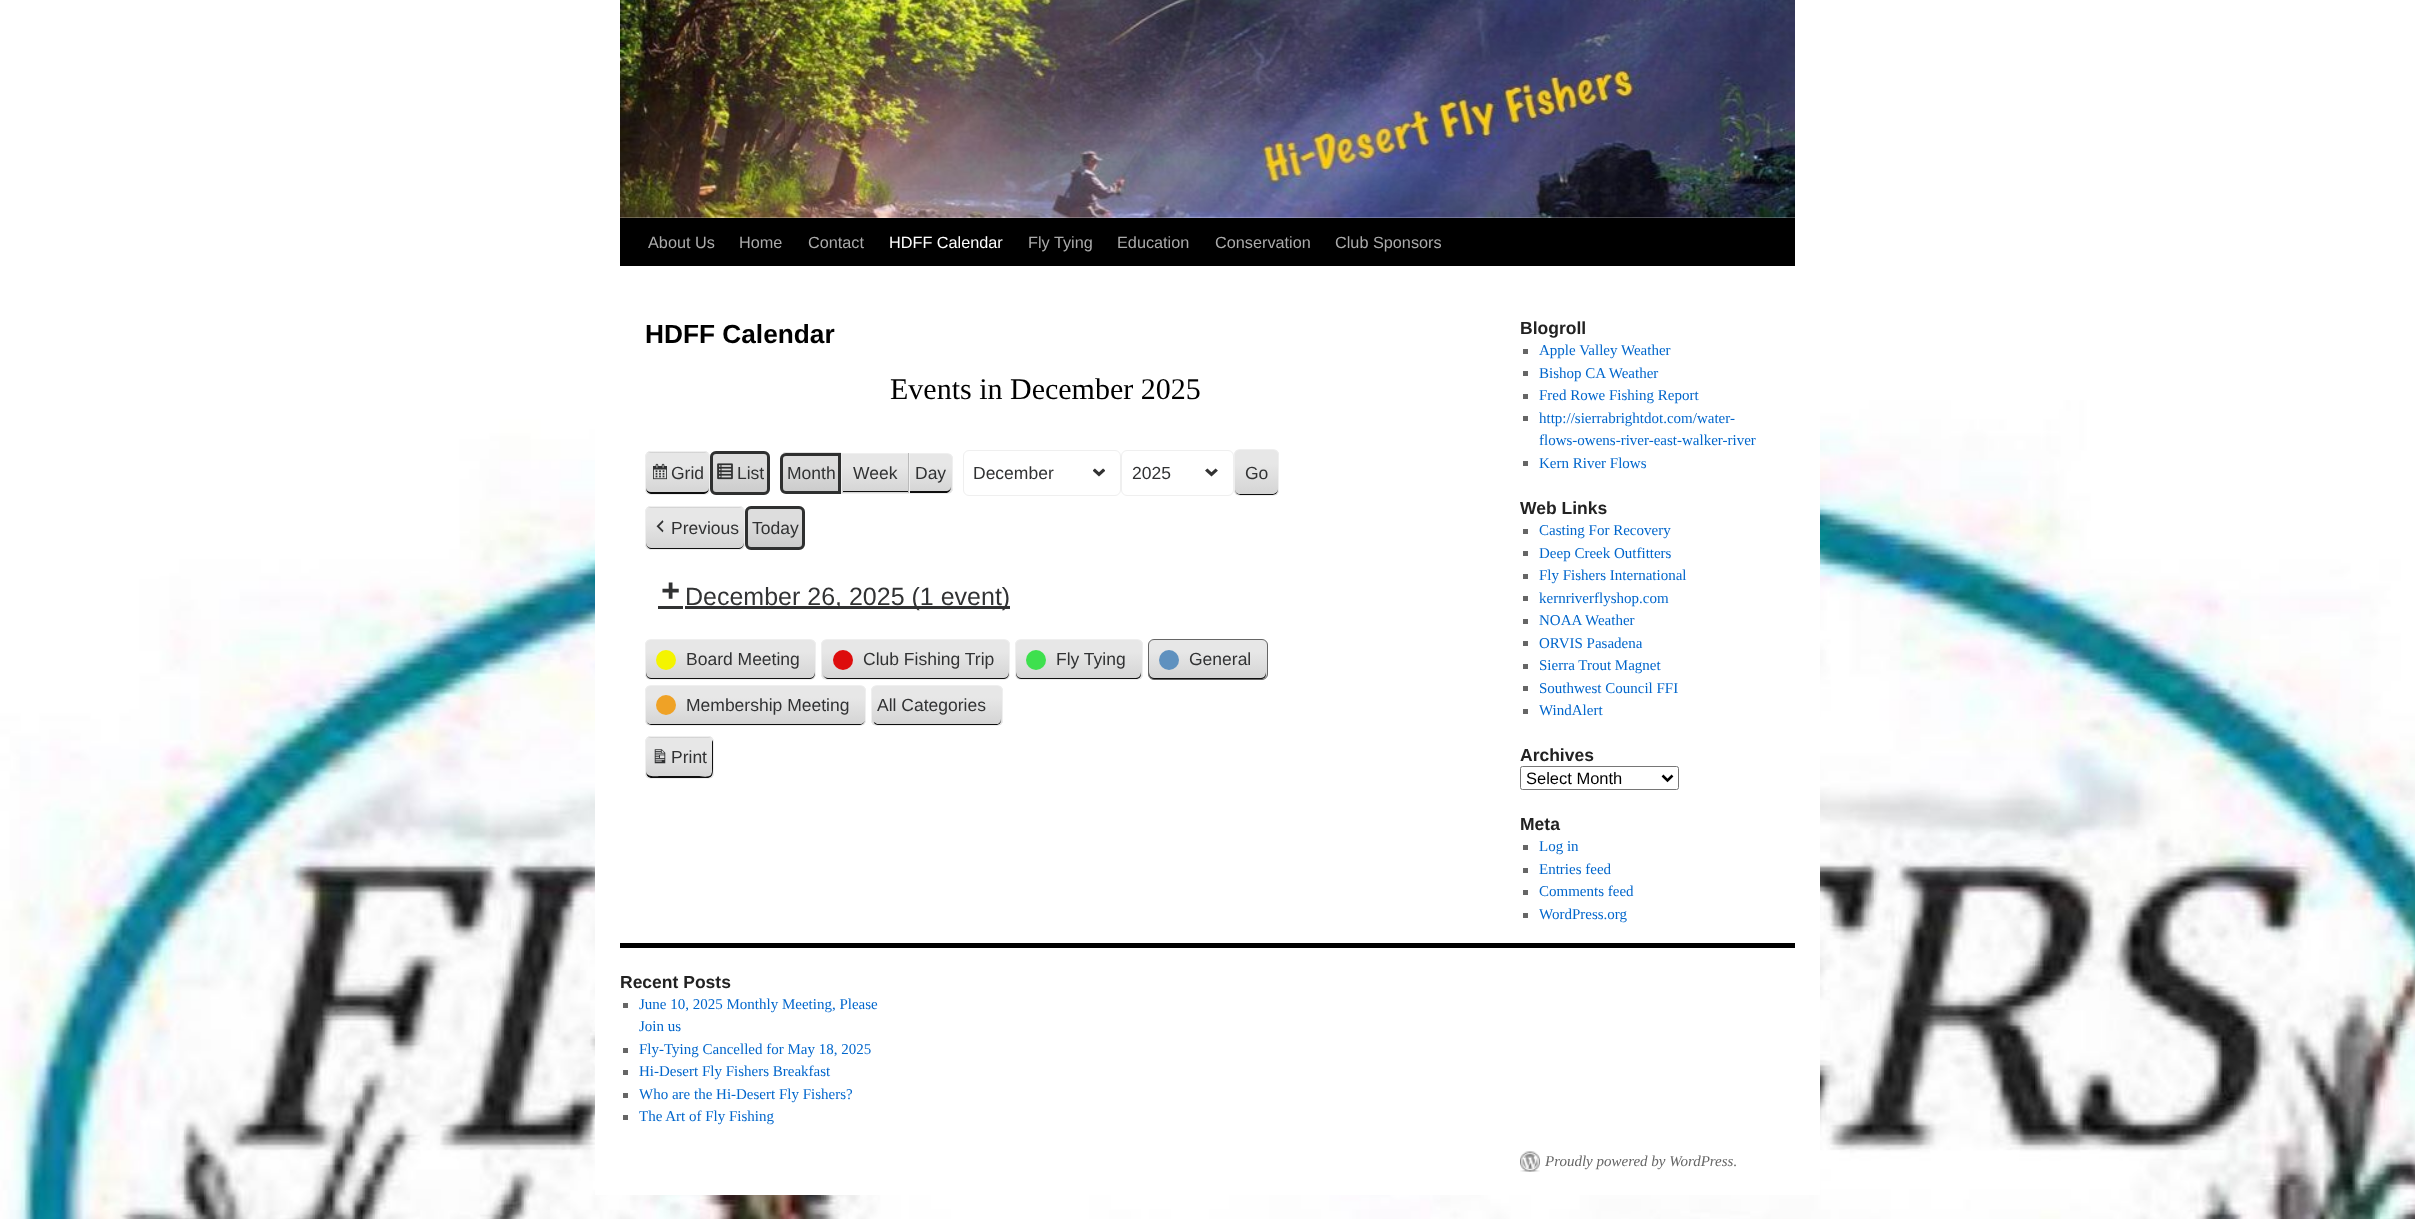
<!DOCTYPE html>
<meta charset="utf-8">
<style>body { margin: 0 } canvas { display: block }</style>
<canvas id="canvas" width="2415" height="1219"></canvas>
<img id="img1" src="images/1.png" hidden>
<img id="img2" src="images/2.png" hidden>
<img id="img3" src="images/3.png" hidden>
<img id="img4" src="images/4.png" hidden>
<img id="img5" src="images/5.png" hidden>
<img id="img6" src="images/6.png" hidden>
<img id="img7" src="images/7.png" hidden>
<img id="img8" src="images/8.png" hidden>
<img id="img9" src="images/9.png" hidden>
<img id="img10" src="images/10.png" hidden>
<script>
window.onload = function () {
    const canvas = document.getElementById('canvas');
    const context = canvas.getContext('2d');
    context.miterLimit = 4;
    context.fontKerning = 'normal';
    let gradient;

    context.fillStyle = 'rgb(255, 255, 255)';
    context.fillRect(0, 0, 2415, 1219);
    context.drawImage(document.getElementById('img1'), 0, 400, 2415, 819);
    context.fillRect(595, 400, 1225, 795);
    context.fillStyle = 'rgb(0, 0, 0)';
    context.fillRect(620, 218, 1175, 48);
    context.drawImage(document.getElementById('img2'), 620, 0, 1175, 218);
    context.save();
    context.beginPath();
    context.roundRect(645, 451, 65, 44, 6);
    context.clip();
    gradient = context.createLinearGradient(678, 453, 678, 411);
    gradient.addColorStop(0, 'rgb(212, 212, 212)');
    gradient.addColorStop(0.7, 'rgb(231, 231, 231)');
    context.fillStyle = gradient;
    context.fillRect(645, 451, 65, 2);
    gradient = context.createLinearGradient(678, 494, 678, 453);
    gradient.addColorStop(0, 'rgb(212, 212, 212)');
    gradient.addColorStop(0.7, 'rgb(231, 231, 231)');
    context.fillStyle = gradient;
    context.fillRect(645, 453, 65, 41);
    context.restore();
    context.fillStyle = 'rgb(15, 15, 15)';
    context.beginPath();
    context.moveTo(646, 488);
    context.bezierCurveTo(646, 496, 654, 494, 660, 494);
    context.lineTo(695, 494);
    context.bezierCurveTo(701, 494, 709, 496, 709, 488);
    context.bezierCurveTo(709, 490, 707, 492, 704, 492);
    context.lineTo(651, 492);
    context.bezierCurveTo(648, 492, 646, 490, 646, 488);
    context.closePath();
    context.fill();
    context.beginPath();
    context.roundRect(645.5, 451.5, 64, 43, 5.5);
    context.strokeStyle = 'rgb(239, 239, 239)';
    context.stroke();
    context.drawImage(document.getElementById('img3'), 653, 463, 14, 17);
    context.save();
    context.beginPath();
    context.roundRect(710, 451, 60, 44, 6);
    context.clip();
    gradient = context.createLinearGradient(740, 494, 740, 453);
    gradient.addColorStop(0, 'rgb(203, 203, 203)');
    gradient.addColorStop(0.7, 'rgb(221, 221, 221)');
    context.fillStyle = gradient;
    context.fillRect(710, 453, 60, 41);
    context.restore();
    context.beginPath();
    context.roundRect(710.5, 451.5, 59, 43, 5.5);
    context.strokeStyle = 'rgb(227, 227, 227)';
    context.stroke();
    context.drawImage(document.getElementById('img4'), 717, 463, 16, 17);
    context.beginPath();
    context.roundRect(711.5, 452.5, 57, 41, 4.5);
    context.strokeStyle = 'rgb(47, 48, 48)';
    context.lineWidth = 3;
    context.stroke();
    context.save();
    context.beginPath();
    context.roundRect(780, 453, 61, 41, [6, 0, 0, 6]);
    context.clip();
    gradient = context.createLinearGradient(811, 493, 811, 454);
    gradient.addColorStop(0, 'rgb(203, 203, 203)');
    gradient.addColorStop(0.7, 'rgb(221, 221, 221)');
    context.fillStyle = gradient;
    context.fillRect(780, 454, 58, 39);
    context.restore();
    context.fillStyle = 'rgb(227, 227, 227)';
    context.beginPath();
    context.moveTo(786, 454);
    context.lineTo(783, 455);
    context.lineTo(782, 454);
    context.lineTo(784, 452);
    context.lineTo(841, 452);
    context.lineTo(840, 454);
    context.closePath();
    context.fill();
    context.beginPath();
    context.moveTo(780, 459);
    context.lineTo(780, 488);
    context.bezierCurveTo(780, 489.5, 780.5, 491, 782, 492);
    context.lineTo(782.5, 491);
    context.bezierCurveTo(781.5, 490.5, 781, 489, 781, 488);
    context.lineTo(781, 459);
    context.bezierCurveTo(781, 457.5, 781.5, 456, 782.5, 455);
    context.lineTo(781.5, 454);
    context.bezierCurveTo(780.5, 455.5, 780, 457, 780, 459);
    context.closePath();
    context.fill();
    context.beginPath();
    context.roundRect(781.5, 454.5, 58, 38, [4.5, 0, 0, 4.5]);
    context.stroke();
    gradient = context.createLinearGradient(875, 493, 875, 454);
    gradient.addColorStop(0, 'rgb(212, 212, 212)');
    gradient.addColorStop(0.7, 'rgb(231, 231, 231)');
    context.fillStyle = gradient;
    context.fillRect(842, 454, 66, 39);
    context.fillStyle = 'rgb(15, 15, 15)';
    context.fillRect(843, 491, 65, 1);
    context.fillStyle = 'rgb(239, 239, 239)';
    context.fillRect(841, 453, 68, 1);
    context.fillStyle = 'rgb(187, 187, 187)';
    context.fillRect(908, 453, 1, 41);
    context.fillStyle = 'rgb(239, 239, 239)';
    context.fillRect(841, 493, 68, 1);
    context.fillRect(841, 453, 1, 41);
    context.save();
    context.beginPath();
    context.roundRect(909, 453, 44, 41, [0, 6, 6, 0]);
    context.clip();
    gradient = context.createLinearGradient(931, 493, 931, 454);
    gradient.addColorStop(0, 'rgb(212, 212, 212)');
    gradient.addColorStop(0.7, 'rgb(231, 231, 231)');
    context.fillStyle = gradient;
    context.fillRect(910, 454, 43, 39);
    context.restore();
    context.fillStyle = 'rgb(15, 15, 15)';
    context.beginPath();
    context.moveTo(910, 491);
    context.lineTo(910, 493);
    context.lineTo(934, 493);
    context.bezierCurveTo(942, 493, 951, 496, 951, 486);
    context.bezierCurveTo(951, 489, 949, 491, 946, 491);
    context.closePath();
    context.fill();
    context.beginPath();
    context.roundRect(909.5, 453.5, 43, 40, [0, 5.5, 5.5, 0]);
    context.strokeStyle = 'rgb(239, 239, 239)';
    context.lineWidth = 1;
    context.stroke();
    context.drawImage(document.getElementById('img5'), 1093, 468, 12, 9);
    context.beginPath();
    context.roundRect(963.5, 450.5, 157, 45, 5.5);
    context.stroke();
    context.drawImage(document.getElementById('img6'), 1205, 468, 13, 9);
    context.beginPath();
    context.roundRect(1121.5, 450.5, 112, 45, 5.5);
    context.stroke();
    context.save();
    context.beginPath();
    context.roundRect(1234, 449, 45, 47, 6);
    context.clip();
    gradient = context.createLinearGradient(1256, 495, 1256, 450);
    gradient.addColorStop(0, 'rgb(212, 212, 212)');
    gradient.addColorStop(0.7, 'rgb(231, 231, 231)');
    context.fillStyle = gradient;
    context.fillRect(1234, 450, 45, 45);
    context.restore();
    context.beginPath();
    context.moveTo(1235, 489);
    context.bezierCurveTo(1235, 496, 1240, 495, 1246, 495);
    context.lineTo(1268, 495);
    context.bezierCurveTo(1273, 495, 1278, 496, 1278, 489);
    context.bezierCurveTo(1278, 492, 1275, 494, 1272, 494);
    context.lineTo(1240, 494);
    context.bezierCurveTo(1237, 494, 1235, 492, 1235, 489);
    context.closePath();
    context.fill();
    context.beginPath();
    context.roundRect(1234.5, 449.5, 44, 46, 5.5);
    context.stroke();
    context.save();
    context.beginPath();
    context.roundRect(645, 506, 100, 44, 6);
    context.clip();
    gradient = context.createLinearGradient(695, 508, 695, 466);
    gradient.addColorStop(0, 'rgb(212, 212, 212)');
    gradient.addColorStop(0.7, 'rgb(231, 231, 231)');
    context.fillStyle = gradient;
    context.fillRect(645, 506, 100, 2);
    gradient = context.createLinearGradient(695, 549, 695, 508);
    gradient.addColorStop(0, 'rgb(212, 212, 212)');
    gradient.addColorStop(0.7, 'rgb(231, 231, 231)');
    context.fillStyle = gradient;
    context.fillRect(645, 508, 100, 41);
    context.restore();
    context.beginPath();
    context.moveTo(646, 542);
    context.bezierCurveTo(646, 553, 657, 549, 666, 549);
    context.lineTo(724, 549);
    context.bezierCurveTo(733, 549, 744, 553, 744, 542);
    context.bezierCurveTo(744, 545, 742, 548, 739, 548);
    context.lineTo(651, 548);
    context.bezierCurveTo(648, 548, 646, 545, 646, 542);
    context.closePath();
    context.fill();
    context.beginPath();
    context.roundRect(645.5, 506.5, 99, 43, 5.5);
    context.stroke();
    context.drawImage(document.getElementById('img7'), 656, 520, 8, 13);
    context.save();
    context.beginPath();
    context.roundRect(745, 506, 60, 44, 6);
    context.clip();
    gradient = context.createLinearGradient(775, 549, 775, 508);
    gradient.addColorStop(0, 'rgb(203, 203, 203)');
    gradient.addColorStop(0.7, 'rgb(221, 221, 221)');
    context.fillStyle = gradient;
    context.fillRect(745, 508, 60, 41);
    context.restore();
    context.beginPath();
    context.roundRect(745.5, 506.5, 59, 43, 5.5);
    context.strokeStyle = 'rgb(227, 227, 227)';
    context.stroke();
    context.beginPath();
    context.roundRect(746.5, 507.5, 57, 41, 4.5);
    context.strokeStyle = 'rgb(47, 48, 48)';
    context.lineWidth = 3;
    context.stroke();
    context.drawImage(document.getElementById('img8'), 662, 582, 17, 17);
    context.fillStyle = 'rgb(49, 50, 51)';
    context.fillRect(685, 606, 325, 3);
    context.fillRect(658, 606, 25, 3);
    context.save();
    context.beginPath();
    context.roundRect(645, 639, 171, 41, 6);
    context.clip();
    gradient = context.createLinearGradient(731, 679, 731, 640);
    gradient.addColorStop(0, 'rgb(212, 212, 212)');
    gradient.addColorStop(0.7, 'rgb(231, 231, 231)');
    context.fillStyle = gradient;
    context.fillRect(645, 640, 171, 39);
    context.restore();
    context.fillStyle = 'rgb(15, 15, 15)';
    context.beginPath();
    context.moveTo(646, 672);
    context.lineTo(646, 674);
    context.bezierCurveTo(646, 677, 648, 679, 651, 679);
    context.lineTo(810, 679);
    context.bezierCurveTo(813, 679, 815, 677, 815, 674);
    context.lineTo(815, 672);
    context.bezierCurveTo(815, 675, 813, 678, 810, 678);
    context.lineTo(651, 678);
    context.bezierCurveTo(648, 678, 646, 675, 646, 672);
    context.closePath();
    context.fill();
    context.beginPath();
    context.roundRect(645.5, 639.5, 170, 40, 5.5);
    context.strokeStyle = 'rgb(239, 239, 239)';
    context.lineWidth = 1;
    context.stroke();
    context.fillStyle = 'rgb(244, 244, 0)';
    context.beginPath();
    context.arc(666, 660, 10, 0, 2 * Math.PI);
    context.fill();
    context.save();
    context.beginPath();
    context.roundRect(821, 639, 189, 41, 6);
    context.clip();
    gradient = context.createLinearGradient(916, 679, 916, 640);
    gradient.addColorStop(0, 'rgb(212, 212, 212)');
    gradient.addColorStop(0.7, 'rgb(231, 231, 231)');
    context.fillStyle = gradient;
    context.fillRect(821, 640, 189, 39);
    context.restore();
    context.fillStyle = 'rgb(15, 15, 15)';
    context.beginPath();
    context.moveTo(823, 675);
    context.bezierCurveTo(824, 677, 826, 679, 828, 679);
    context.lineTo(1004, 679);
    context.bezierCurveTo(1007, 679, 1009, 677, 1009, 674);
    context.lineTo(1009, 672);
    context.bezierCurveTo(1009, 675, 1007, 678, 1004, 678);
    context.lineTo(828, 678);
    context.bezierCurveTo(826, 678, 824, 677, 823, 675);
    context.closePath();
    context.fill();
    context.beginPath();
    context.roundRect(821.5, 639.5, 188, 40, 5.5);
    context.stroke();
    context.fillStyle = 'rgb(221, 13, 13)';
    context.beginPath();
    context.arc(843, 660, 10, 0, 2 * Math.PI);
    context.fill();
    context.save();
    context.beginPath();
    context.roundRect(1015, 639, 128, 41, 6);
    context.clip();
    gradient = context.createLinearGradient(1079, 679, 1079, 640);
    gradient.addColorStop(0, 'rgb(212, 212, 212)');
    gradient.addColorStop(0.7, 'rgb(231, 231, 231)');
    context.fillStyle = gradient;
    context.fillRect(1015, 640, 128, 39);
    context.restore();
    context.fillStyle = 'rgb(15, 15, 15)';
    context.beginPath();
    context.moveTo(1016, 672);
    context.lineTo(1016, 674);
    context.bezierCurveTo(1016, 677, 1018, 679, 1021, 679);
    context.lineTo(1136, 679);
    context.bezierCurveTo(1139, 679, 1141, 677, 1141, 674);
    context.lineTo(1141, 672);
    context.bezierCurveTo(1141, 675, 1139, 678, 1136, 678);
    context.lineTo(1021, 678);
    context.bezierCurveTo(1018, 678, 1016, 675, 1016, 672);
    context.closePath();
    context.fill();
    context.beginPath();
    context.roundRect(1015.5, 639.5, 127, 40, 5.5);
    context.stroke();
    context.fillStyle = 'rgb(62, 224, 78)';
    context.beginPath();
    context.arc(1036, 660, 10, 0, 2 * Math.PI);
    context.fill();
    context.save();
    context.beginPath();
    context.roundRect(1148, 639, 120, 41, 6);
    context.clip();
    gradient = context.createLinearGradient(1208, 679, 1208, 640);
    gradient.addColorStop(0, 'rgb(212, 212, 212)');
    gradient.addColorStop(0.7, 'rgb(231, 231, 231)');
    context.fillStyle = gradient;
    context.fillRect(1148, 640, 120, 39);
    context.restore();
    context.fillStyle = 'rgb(15, 15, 15)';
    context.beginPath();
    context.moveTo(1149, 672);
    context.lineTo(1149, 674);
    context.bezierCurveTo(1149, 677, 1151, 679, 1154, 679);
    context.lineTo(1261, 679);
    context.bezierCurveTo(1264, 679, 1266, 677, 1266, 674);
    context.lineTo(1266, 672);
    context.bezierCurveTo(1266, 675, 1264, 678, 1261, 678);
    context.lineTo(1154, 678);
    context.bezierCurveTo(1151, 678, 1149, 675, 1149, 672);
    context.closePath();
    context.fill();
    context.beginPath();
    context.roundRect(1148.5, 639.5, 119, 40, 5.5);
    context.strokeStyle = 'rgb(102, 102, 102)';
    context.stroke();
    context.fillStyle = 'rgb(95, 145, 191)';
    context.beginPath();
    context.arc(1169, 660, 10, 0, 2 * Math.PI);
    context.fill();
    context.save();
    context.beginPath();
    context.roundRect(645, 685, 221, 41, 6);
    context.clip();
    gradient = context.createLinearGradient(756, 725, 756, 686);
    gradient.addColorStop(0, 'rgb(212, 212, 212)');
    gradient.addColorStop(0.7, 'rgb(231, 231, 231)');
    context.fillStyle = gradient;
    context.fillRect(645, 686, 221, 39);
    context.restore();
    context.fillStyle = 'rgb(15, 15, 15)';
    context.beginPath();
    context.moveTo(646, 719);
    context.bezierCurveTo(646, 722, 648, 725, 651, 725);
    context.lineTo(861, 725);
    context.bezierCurveTo(864, 724, 865, 722, 865, 719);
    context.bezierCurveTo(865, 722, 863, 724, 860, 724);
    context.lineTo(651, 724);
    context.bezierCurveTo(648, 724, 646, 722, 646, 719);
    context.closePath();
    context.fill();
    context.beginPath();
    context.roundRect(645.5, 685.5, 220, 40, 5.5);
    context.strokeStyle = 'rgb(239, 239, 239)';
    context.stroke();
    context.fillStyle = 'rgb(239, 162, 38)';
    context.beginPath();
    context.arc(666, 705, 10, 0, 2 * Math.PI);
    context.fill();
    context.save();
    context.beginPath();
    context.roundRect(871, 685, 132, 41, 6);
    context.clip();
    gradient = context.createLinearGradient(937, 725, 937, 686);
    gradient.addColorStop(0, 'rgb(212, 212, 212)');
    gradient.addColorStop(0.7, 'rgb(231, 231, 231)');
    context.fillStyle = gradient;
    context.fillRect(871, 686, 132, 39);
    context.restore();
    context.fillStyle = 'rgb(15, 15, 15)';
    context.beginPath();
    context.moveTo(874, 722);
    context.bezierCurveTo(874, 724, 876, 725, 878, 725);
    context.lineTo(996, 725);
    context.bezierCurveTo(999, 725, 1001, 723, 1001, 720);
    context.lineTo(1001, 719);
    context.bezierCurveTo(1001, 721, 1000, 723, 998, 724);
    context.lineTo(877, 724);
    context.closePath();
    context.fill();
    context.beginPath();
    context.roundRect(871.5, 685.5, 131, 40, 5.5);
    context.stroke();
    context.save();
    context.beginPath();
    context.roundRect(645, 736, 69, 43, 6);
    context.clip();
    gradient = context.createLinearGradient(679, 738, 679, 698);
    gradient.addColorStop(0, 'rgb(212, 212, 212)');
    gradient.addColorStop(0.7, 'rgb(231, 231, 231)');
    context.fillStyle = gradient;
    context.fillRect(645, 736, 69, 2);
    gradient = context.createLinearGradient(679, 778, 679, 738);
    gradient.addColorStop(0, 'rgb(212, 212, 212)');
    gradient.addColorStop(0.7, 'rgb(231, 231, 231)');
    context.fillStyle = gradient;
    context.fillRect(645, 738, 69, 40);
    context.restore();
    context.beginPath();
    context.moveTo(646, 771);
    context.bezierCurveTo(646, 780, 653, 778, 660, 778);
    context.lineTo(689, 778);
    context.bezierCurveTo(715, 778, 713, 782, 713, 758);
    context.lineTo(713, 748);
    context.bezierCurveTo(713, 746, 714, 742, 712, 740);
    context.lineTo(712, 772);
    context.lineTo(711, 775);
    context.bezierCurveTo(708, 778, 700, 776, 698, 776);
    context.lineTo(660, 776);
    context.bezierCurveTo(657, 776, 646, 778, 646, 771);
    context.closePath();
    context.fill();
    context.beginPath();
    context.roundRect(645.5, 736.5, 68, 42, 5.5);
    context.stroke();
    context.drawImage(document.getElementById('img9'), 654, 749, 12, 15);
    context.fillStyle = 'rgb(102, 102, 102)';
    context.fillRect(1523, 349, 5, 5);
    context.fillRect(1523, 371, 5, 5);
    context.fillRect(1523, 394, 5, 5);
    context.fillRect(1523, 416, 5, 5);
    context.fillRect(1523, 461, 5, 5);
    context.fillRect(1523, 529, 5, 5);
    context.fillRect(1523, 551, 5, 5);
    context.fillRect(1523, 574, 5, 5);
    context.fillRect(1523, 596, 5, 5);
    context.fillRect(1523, 619, 5, 5);
    context.fillRect(1523, 641, 5, 5);
    context.fillRect(1523, 664, 5, 5);
    context.fillRect(1523, 686, 5, 5);
    context.fillRect(1523, 709, 5, 5);
    context.beginPath();
    context.roundRect(1520.5, 766.5, 158, 23, 2);
    context.strokeStyle = 'rgb(118, 118, 118)';
    context.stroke();
    context.beginPath();
    context.moveTo(1662.5, 775.5);
    context.lineTo(1667.5, 780.5);
    context.lineTo(1672.5, 775.5);
    context.strokeStyle = 'rgb(0, 0, 0)';
    context.lineWidth = 2.5;
    context.stroke();
    context.fillRect(1523, 845, 5, 5);
    context.fillRect(1523, 868, 5, 5);
    context.fillRect(1523, 890, 5, 5);
    context.fillRect(1523, 913, 5, 5);
    context.fillStyle = 'rgb(0, 0, 0)';
    context.fillRect(620, 943, 1175, 5);
    context.fillStyle = 'rgb(102, 102, 102)';
    context.fillRect(623, 1003, 5, 5);
    context.fillRect(623, 1048, 5, 5);
    context.fillRect(623, 1070, 5, 5);
    context.fillRect(623, 1093, 5, 5);
    context.fillRect(623, 1115, 5, 5);
    context.drawImage(document.getElementById('img10'), 1520, 1151, 20, 21);
    context.font = '16.25px Liberation Sans';
    context.fillStyle = 'rgb(170, 170, 170)';
    context.fillText('About Us', 648, 248);
    context.fillText('Home', 739, 248);
    context.fillText('Contact', 808, 248);
    context.fillStyle = 'rgb(255, 255, 255)';
    context.fillText('HDFF Calendar', 889, 248);
    context.fillStyle = 'rgb(170, 170, 170)';
    context.fillText('Fly Tying', 1028, 248);
    context.fillText('Education', 1117, 248);
    context.fillText('Conservation', 1215, 248);
    context.fillText('Club Sponsors', 1335, 248);
    context.font = 'bold 26.25px Liberation Sans';
    context.fillStyle = 'rgb(0, 0, 0)';
    context.fillText('HDFF Calendar', 645, 343);
    context.font = '30px Liberation Serif';
    context.fillText('Events in December 2025', 890, 399);
    context.font = '17.5px Liberation Sans';
    context.fillStyle = 'rgb(49, 50, 51)';
    context.fillText('Grid', 671, 479);
    context.fillText('List', 737, 479);
    context.fillText('Month', 787, 479);
    context.fillText('Week', 853, 479);
    context.fillText('Day', 915, 479);
    context.fillText('December', 973, 479);
    context.fillText('2025', 1132, 479);
    context.fillText('Go', 1245, 479);
    context.fillText('Previous', 671, 534);
    context.fillText('Today', 752, 534);
    context.font = '25px Liberation Sans';
    context.fillText('December 26, 2025 (1 event)', 685, 605);
    context.font = '17.5px Liberation Sans';
    context.fillText('Board Meeting', 686, 665);
    context.fillText('Club Fishing Trip', 863, 665);
    context.fillText('Fly Tying', 1056, 665);
    context.fillText('General', 1189, 665);
    context.fillText('Membership Meeting', 686, 711);
    context.fillText('All Categories', 877, 711);
    context.fillText('Print', 671, 763);
    context.font = 'bold 17.5px Liberation Sans';
    context.fillStyle = 'rgb(34, 34, 34)';
    context.fillText('Blogroll', 1520, 334);
    context.font = '15px Liberation Serif';
    context.fillStyle = 'rgb(0, 102, 204)';
    context.fillText('Apple Valley Weather', 1539, 355);
    context.fillText('Bishop CA Weather', 1539, 378);
    context.fillText('Fred Rowe Fishing Report', 1539, 400);
    context.fillText('http://sierrabrightdot.com/water-', 1539, 423);
    context.fillText('flows-owens-river-east-walker-river', 1539, 445);
    context.fillText('Kern River Flows', 1539, 468);
    context.font = 'bold 17.5px Liberation Sans';
    context.fillStyle = 'rgb(34, 34, 34)';
    context.fillText('Web Links', 1520, 514);
    context.font = '15px Liberation Serif';
    context.fillStyle = 'rgb(0, 102, 204)';
    context.fillText('Casting For Recovery', 1539, 535);
    context.fillText('Deep Creek Outfitters', 1539, 558);
    context.fillText('Fly Fishers International', 1539, 580);
    context.fillText('kernriverflyshop.com', 1539, 603);
    context.fillText('NOAA Weather', 1539, 625);
    context.fillText('ORVIS Pasadena', 1539, 648);
    context.fillText('Sierra Trout Magnet', 1539, 670);
    context.fillText('Southwest Council FFI', 1539, 693);
    context.fillText('WindAlert', 1539, 715);
    context.font = 'bold 17.5px Liberation Sans';
    context.fillStyle = 'rgb(34, 34, 34)';
    context.fillText('Archives', 1520, 761);
    context.font = '16.5px Liberation Sans';
    context.fillStyle = 'rgb(0, 0, 0)';
    context.fillText('Select Month', 1526, 784);
    context.font = 'bold 17.5px Liberation Sans';
    context.fillStyle = 'rgb(34, 34, 34)';
    context.fillText('Meta', 1520, 830);
    context.font = '15px Liberation Serif';
    context.fillStyle = 'rgb(0, 102, 204)';
    context.fillText('Log in', 1539, 851);
    context.fillText('Entries feed', 1539, 874);
    context.fillText('Comments feed', 1539, 896);
    context.fillText('WordPress.org', 1539, 919);
    context.font = 'bold 17.5px Liberation Sans';
    context.fillStyle = 'rgb(34, 34, 34)';
    context.fillText('Recent Posts', 620, 988);
    context.font = '15px Liberation Serif';
    context.fillStyle = 'rgb(0, 102, 204)';
    context.fillText('June 10, 2025 Monthly Meeting, Please', 639, 1009);
    context.fillText('Join us', 639, 1031);
    context.fillText('Fly-Tying Cancelled for May 18, 2025', 639, 1054);
    context.fillText('Hi-Desert Fly Fishers Breakfast', 639, 1076);
    context.fillText('Who are the Hi-Desert Fly Fishers?', 639, 1099);
    context.fillText('The Art of Fly Fishing', 639, 1121);
    context.font = 'italic 15px Liberation Serif';
    context.fillStyle = 'rgb(102, 102, 102)';
    context.fillText('Proudly powered by WordPress.', 1545, 1166);
};
</script>
